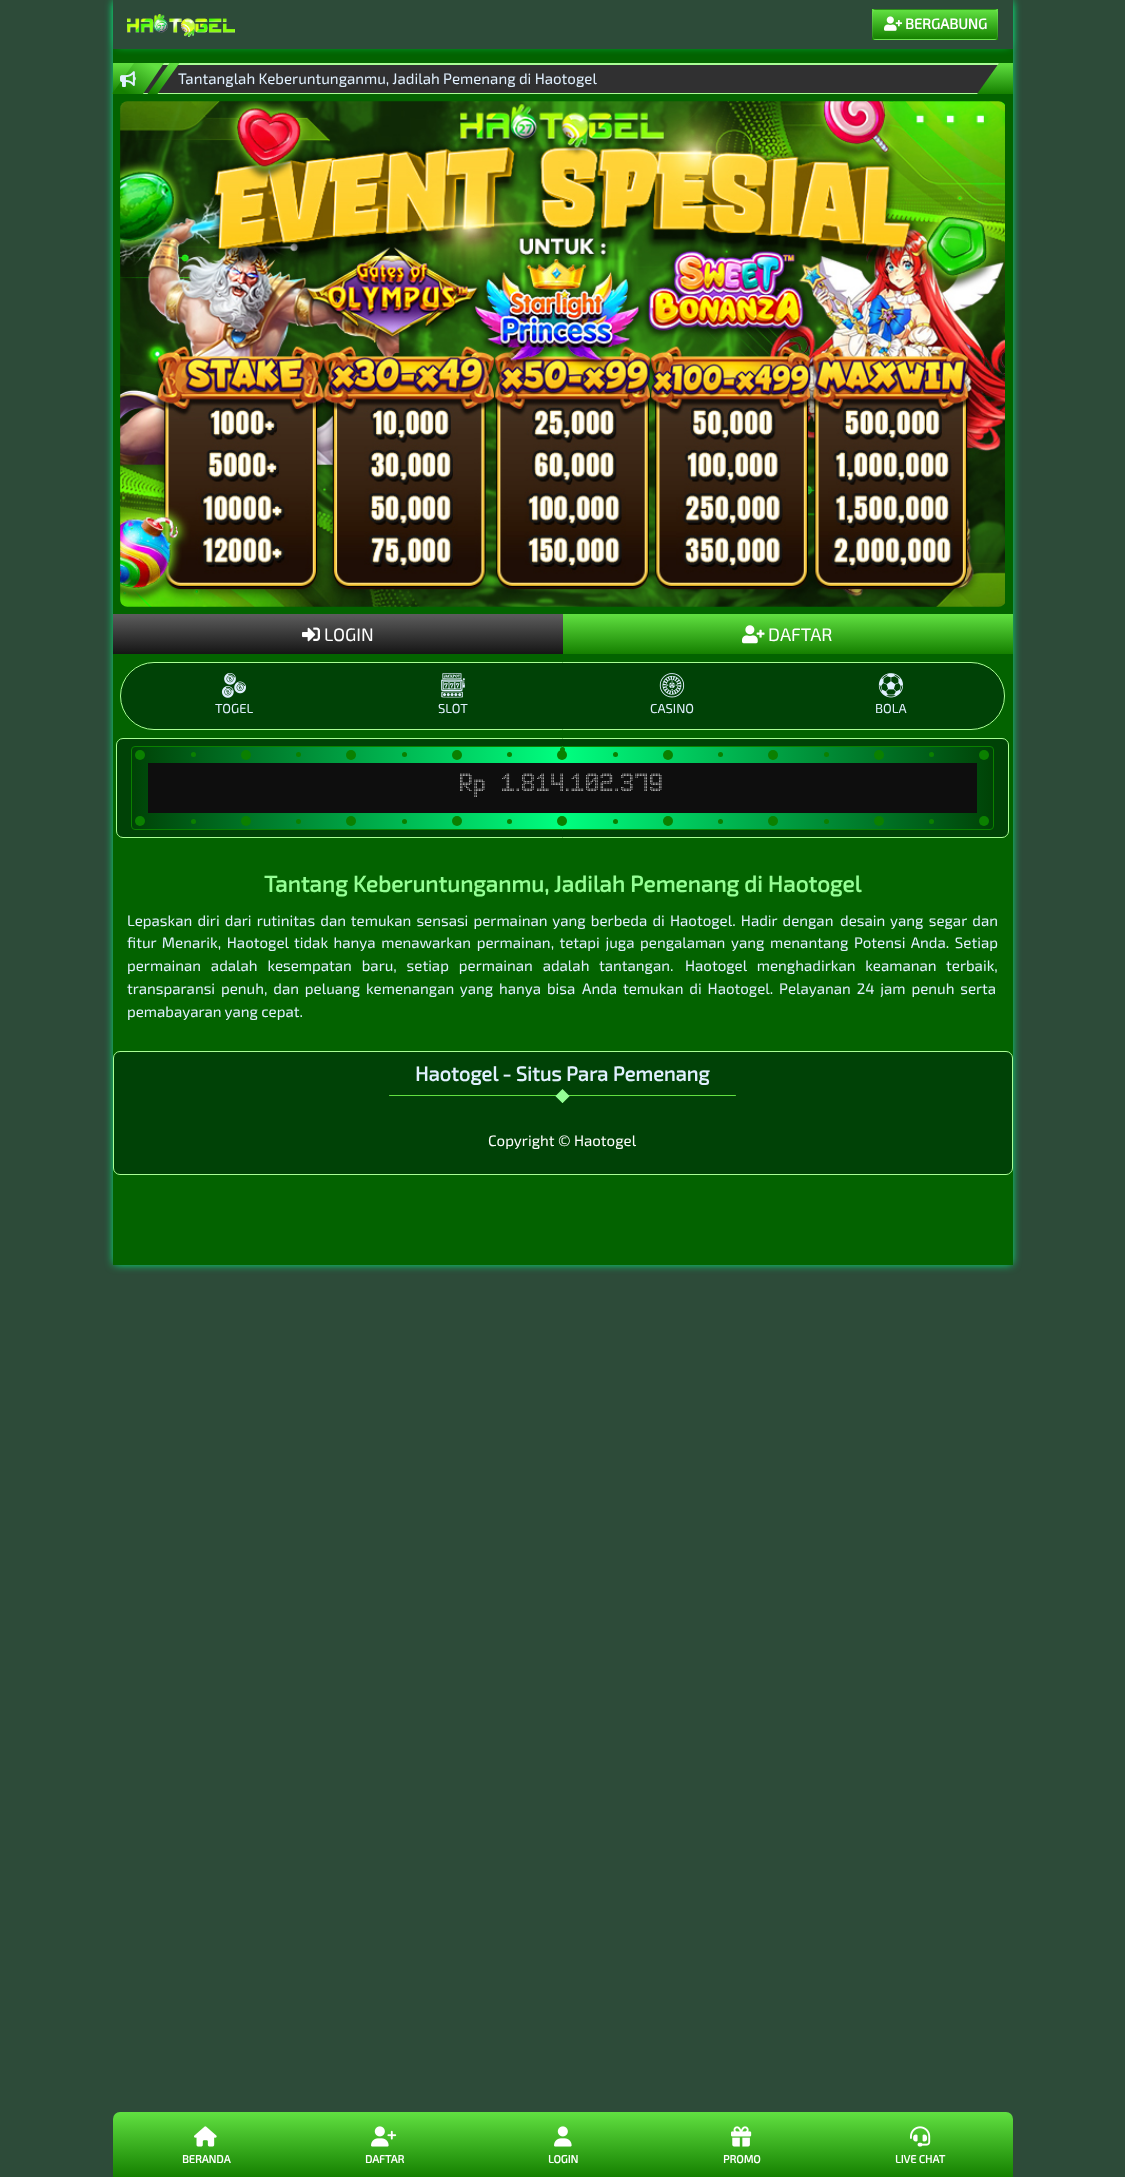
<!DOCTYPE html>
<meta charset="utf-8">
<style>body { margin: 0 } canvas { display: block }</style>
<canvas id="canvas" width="1125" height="2177"></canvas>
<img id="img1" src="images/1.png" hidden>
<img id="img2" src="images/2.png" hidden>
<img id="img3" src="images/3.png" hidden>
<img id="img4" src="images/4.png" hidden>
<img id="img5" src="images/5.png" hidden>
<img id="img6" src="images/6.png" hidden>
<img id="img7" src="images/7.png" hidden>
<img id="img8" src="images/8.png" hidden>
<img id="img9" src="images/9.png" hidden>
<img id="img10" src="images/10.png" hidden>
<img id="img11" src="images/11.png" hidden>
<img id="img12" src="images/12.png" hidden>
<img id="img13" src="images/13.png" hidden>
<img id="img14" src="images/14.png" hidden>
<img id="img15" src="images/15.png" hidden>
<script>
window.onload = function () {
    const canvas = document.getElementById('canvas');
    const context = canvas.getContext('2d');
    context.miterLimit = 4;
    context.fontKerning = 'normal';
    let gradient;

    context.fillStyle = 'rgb(45, 75, 57)';
    context.fillRect(0, 0, 1125, 2177);
    context.fillStyle = 'rgb(0, 255, 128)';
    context.filter = 'blur(5px)';
    context.beginPath();
    context.rect(114, 1, 898, 1263);
    context.fill();
    context.filter = 'none';
    context.fillStyle = 'rgb(3, 99, 0)';
    context.fillRect(113, 49, 900, 1216);
    context.fillStyle = 'rgb(0, 255, 128)';
    context.filter = 'blur(5px)';
    context.beginPath();
    context.rect(117, 4, 892, 41);
    context.fill();
    context.filter = 'none';
    context.fillStyle = 'rgb(45, 75, 57)';
    context.fillRect(113, 0, 900, 49);
    context.drawImage(document.getElementById('img1'), 127, 14, 108, 23);
    gradient = context.createLinearGradient(935, 9, 935, 40);
    gradient.addColorStop(0, 'rgb(97, 224, 65)');
    gradient.addColorStop(1, 'rgb(21, 128, 0)');
    context.fillStyle = gradient;
    context.fillRect(872, 9, 126, 31);
    context.save();
    context.beginPath();
    context.roundRect(872, 9, 126, 31, 4);
    context.clip();
    gradient = context.createLinearGradient(935, -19, 935, 10);
    gradient.addColorStop(0, 'rgb(97, 224, 65)');
    gradient.addColorStop(1, 'rgb(21, 128, 0)');
    context.fillStyle = gradient;
    context.fillRect(872, 9, 126, 1);
    gradient = context.createLinearGradient(935, 10, 935, 39);
    gradient.addColorStop(0, 'rgb(97, 224, 65)');
    gradient.addColorStop(1, 'rgb(21, 128, 0)');
    context.fillStyle = gradient;
    context.fillRect(872, 10, 126, 29);
    gradient = context.createLinearGradient(935, 39, 935, 68);
    gradient.addColorStop(0, 'rgb(97, 224, 65)');
    gradient.addColorStop(1, 'rgb(21, 128, 0)');
    context.fillStyle = gradient;
    context.fillRect(872, 39, 126, 1);
    context.restore();
    context.beginPath();
    context.roundRect(872.5, 9.5, 125, 30, 3.5);
    context.strokeStyle = 'rgba(255, 255, 255, 0.1)';
    context.stroke();
    context.drawImage(document.getElementById('img2'), 884, 16, 18, 15);
    gradient = context.createLinearGradient(563, 63, 563, 94);
    gradient.addColorStop(0, 'rgb(97, 224, 65)');
    gradient.addColorStop(1, 'rgb(21, 128, 0)');
    context.fillStyle = gradient;
    context.fillRect(977, 63, 36, 31);
    context.fillStyle = 'rgb(48, 48, 49)';
    context.beginPath();
    context.moveTo(134, 63);
    context.lineTo(999, 63);
    context.lineTo(977, 94);
    context.lineTo(112, 94);
    context.closePath();
    context.fill();
    context.fillStyle = 'rgb(170, 255, 149)';
    context.beginPath();
    context.moveTo(134, 63);
    context.lineTo(999, 63);
    context.lineTo(998, 65);
    context.lineTo(133, 65);
    context.closePath();
    context.fill();
    context.beginPath();
    context.moveTo(113, 93);
    context.lineTo(978, 93);
    context.lineTo(977, 94);
    context.lineTo(112, 94);
    context.closePath();
    context.fill();
    gradient = context.createLinearGradient(128, 63, 128, 94);
    gradient.addColorStop(0, 'rgb(97, 224, 65)');
    gradient.addColorStop(1, 'rgb(21, 128, 0)');
    context.fillStyle = gradient;
    context.fillRect(113, 63, 21, 30);
    gradient = context.createLinearGradient(149, 63, 128, 94);
    gradient.addColorStop(0, 'rgb(97, 224, 65)');
    gradient.addColorStop(1, 'rgb(21, 128, 0)');
    context.fillStyle = gradient;
    context.beginPath();
    context.moveTo(134, 63);
    context.lineTo(164, 63);
    context.lineTo(143, 94);
    context.lineTo(112, 94);
    context.closePath();
    context.fill();
    context.drawImage(document.getElementById('img3'), 120, 71, 16, 16);
    gradient = context.createLinearGradient(174, 63, 153, 94);
    gradient.addColorStop(0, 'rgb(97, 224, 65)');
    gradient.addColorStop(1, 'rgb(21, 128, 0)');
    context.fillStyle = gradient;
    context.beginPath();
    context.moveTo(169.5, 63);
    context.lineTo(179.5, 63);
    context.lineTo(157.5, 94);
    context.lineTo(147.5, 94);
    context.closePath();
    context.fill();
    context.drawImage(document.getElementById('img4'), 120, 101, 885, 506);
    gradient = context.createLinearGradient(338, 614, 338, 654);
    gradient.addColorStop(0, 'rgb(93, 93, 93)');
    gradient.addColorStop(1, 'rgb(21, 21, 21)');
    context.fillStyle = gradient;
    context.fillRect(113, 614, 450, 40);
    context.drawImage(document.getElementById('img5'), 302, 627, 18, 15);
    gradient = context.createLinearGradient(788, 614, 788, 654);
    gradient.addColorStop(0, 'rgb(97, 224, 65)');
    gradient.addColorStop(1, 'rgb(21, 128, 0)');
    context.fillStyle = gradient;
    context.fillRect(563, 614, 450, 40);
    context.drawImage(document.getElementById('img6'), 742, 625, 23, 19);
    context.fillStyle = 'rgb(0, 66, 6)';
    context.beginPath();
    context.roundRect(120.5, 662.5, 884, 67, 33.5);
    context.fill();
    context.strokeStyle = 'rgb(170, 255, 149)';
    context.stroke();
    context.drawImage(document.getElementById('img7'), 221, 673, 25, 25);
    context.drawImage(document.getElementById('img8'), 441, 673, 24, 25);
    context.drawImage(document.getElementById('img9'), 659, 673, 26, 25);
    context.drawImage(document.getElementById('img10'), 878, 673, 26, 25);
    context.beginPath();
    context.roundRect(116.5, 738.5, 892, 99, 6.5);
    context.fill();
    context.stroke();
    context.save();
    context.beginPath();
    context.roundRect(131, 746, 863, 84, 4);
    context.clip();
    gradient = context.createLinearGradient(132, 788, 993, 788);
    gradient.addColorStop(0, 'rgb(0, 66, 6)');
    gradient.addColorStop(0.5, 'rgb(0, 255, 128)');
    gradient.addColorStop(1, 'rgb(0, 66, 6)');
    context.fillStyle = gradient;
    context.fillRect(132, 746, 861, 84);
    context.restore();
    context.beginPath();
    context.roundRect(131.5, 746.5, 862, 83, 3.5);
    context.strokeStyle = 'rgb(11, 128, 0)';
    context.stroke();
    context.fillStyle = 'rgb(11, 128, 0)';
    context.beginPath();
    context.arc(562, 755, 5, 0, 2 * Math.PI);
    context.fill();
    context.beginPath();
    context.arc(562.5, 749.5, 2.5, 0, 2 * Math.PI);
    context.fill();
    context.beginPath();
    context.arc(140, 755, 5, 0, 2 * Math.PI);
    context.fill();
    context.beginPath();
    context.arc(193.5, 754.5, 2.5, 0, 2 * Math.PI);
    context.fill();
    context.beginPath();
    context.arc(246, 755, 5, 0, 2 * Math.PI);
    context.fill();
    context.beginPath();
    context.arc(298.5, 754.5, 2.5, 0, 2 * Math.PI);
    context.fill();
    context.beginPath();
    context.arc(351, 755, 5, 0, 2 * Math.PI);
    context.fill();
    context.beginPath();
    context.arc(404.5, 754.5, 2.5, 0, 2 * Math.PI);
    context.fill();
    context.beginPath();
    context.arc(457, 755, 5, 0, 2 * Math.PI);
    context.fill();
    context.beginPath();
    context.arc(509.5, 754.5, 2.5, 0, 2 * Math.PI);
    context.fill();
    context.beginPath();
    context.arc(615.5, 754.5, 2.5, 0, 2 * Math.PI);
    context.fill();
    context.beginPath();
    context.arc(668, 755, 5, 0, 2 * Math.PI);
    context.fill();
    context.beginPath();
    context.arc(720.5, 754.5, 2.5, 0, 2 * Math.PI);
    context.fill();
    context.beginPath();
    context.arc(773, 755, 5, 0, 2 * Math.PI);
    context.fill();
    context.beginPath();
    context.arc(826.5, 754.5, 2.5, 0, 2 * Math.PI);
    context.fill();
    context.beginPath();
    context.arc(879, 755, 5, 0, 2 * Math.PI);
    context.fill();
    context.beginPath();
    context.arc(931.5, 754.5, 2.5, 0, 2 * Math.PI);
    context.fill();
    context.beginPath();
    context.arc(984, 755, 5, 0, 2 * Math.PI);
    context.fill();
    context.fillStyle = 'rgb(14, 14, 14)';
    context.fillRect(148, 763, 829, 50);
    context.fillStyle = 'rgb(11, 128, 0)';
    context.beginPath();
    context.arc(140, 821, 5, 0, 2 * Math.PI);
    context.fill();
    context.beginPath();
    context.arc(193.5, 821.5, 2.5, 0, 2 * Math.PI);
    context.fill();
    context.beginPath();
    context.arc(246, 821, 5, 0, 2 * Math.PI);
    context.fill();
    context.beginPath();
    context.arc(298.5, 821.5, 2.5, 0, 2 * Math.PI);
    context.fill();
    context.beginPath();
    context.arc(351, 821, 5, 0, 2 * Math.PI);
    context.fill();
    context.beginPath();
    context.arc(404.5, 821.5, 2.5, 0, 2 * Math.PI);
    context.fill();
    context.beginPath();
    context.arc(457, 821, 5, 0, 2 * Math.PI);
    context.fill();
    context.beginPath();
    context.arc(509.5, 821.5, 2.5, 0, 2 * Math.PI);
    context.fill();
    context.beginPath();
    context.arc(562, 821, 5, 0, 2 * Math.PI);
    context.fill();
    context.beginPath();
    context.arc(615.5, 821.5, 2.5, 0, 2 * Math.PI);
    context.fill();
    context.beginPath();
    context.arc(668, 821, 5, 0, 2 * Math.PI);
    context.fill();
    context.beginPath();
    context.arc(720.5, 821.5, 2.5, 0, 2 * Math.PI);
    context.fill();
    context.beginPath();
    context.arc(773, 821, 5, 0, 2 * Math.PI);
    context.fill();
    context.beginPath();
    context.arc(826.5, 821.5, 2.5, 0, 2 * Math.PI);
    context.fill();
    context.beginPath();
    context.arc(879, 821, 5, 0, 2 * Math.PI);
    context.fill();
    context.beginPath();
    context.arc(931.5, 821.5, 2.5, 0, 2 * Math.PI);
    context.fill();
    context.beginPath();
    context.arc(984, 821, 5, 0, 2 * Math.PI);
    context.fill();
    context.fillStyle = 'rgb(0, 66, 6)';
    context.beginPath();
    context.roundRect(113.5, 1051.5, 899, 123, 6.5);
    context.fill();
    context.strokeStyle = 'rgb(170, 255, 149)';
    context.stroke();
    context.fillStyle = 'rgb(97, 224, 65)';
    context.beginPath();
    context.roundRect(389, 1095, 347, 1, 0.5);
    context.fill();
    context.fillStyle = 'rgb(149, 255, 149)';
    context.beginPath();
    context.moveTo(562.5, 1089);
    context.lineTo(569.5, 1096);
    context.lineTo(562.5, 1103);
    context.lineTo(555.5, 1096);
    context.closePath();
    context.fill();
    context.beginPath();
    context.moveTo(569, 1095.5);
    context.lineTo(569.5, 1096);
    context.lineTo(562.5, 1103);
    context.lineTo(562, 1102.5);
    context.closePath();
    context.fill();
    context.beginPath();
    context.moveTo(556, 1095.5);
    context.lineTo(563, 1102.5);
    context.lineTo(562.5, 1103);
    context.lineTo(555.5, 1096);
    context.closePath();
    context.fill();
    gradient = context.createLinearGradient(563, 2112, 563, 2177);
    gradient.addColorStop(0, 'rgb(97, 224, 65)');
    gradient.addColorStop(1, 'rgb(21, 128, 0)');
    context.fillStyle = gradient;
    context.beginPath();
    context.roundRect(113, 2112, 900, 65, [7, 7, 0, 0]);
    context.fill();
    context.drawImage(document.getElementById('img11'), 194, 2126, 23, 21);
    context.drawImage(document.getElementById('img12'), 371, 2126, 26, 21);
    context.drawImage(document.getElementById('img13'), 554, 2126, 18, 21);
    context.drawImage(document.getElementById('img14'), 731, 2126, 21, 21);
    context.drawImage(document.getElementById('img15'), 910, 2126, 21, 21);
    context.font = 'bold 14.5px "Exo 2"';
    context.fillStyle = 'rgb(255, 255, 255)';
    context.fillText('BERGABUNG', 905, 29);
    context.font = '15.1px "Exo 2"';
    context.fillStyle = 'rgb(224, 240, 255)';
    context.fillText('Tantanglah Keberuntunganmu, Jadilah Pemenang di Haotogel', 178, 84);
    context.font = '18px "Exo 2"';
    context.fillStyle = 'rgb(255, 255, 255)';
    context.fillText('LOGIN', 324, 641);
    context.fillText('DAFTAR', 768, 641);
    context.font = '13px "Exo 2"';
    context.fillStyle = 'rgb(224, 240, 255)';
    context.fillText('TOGEL', 215, 713);
    context.fillText('SLOT', 438, 713);
    context.fillText('CASINO', 650, 713);
    context.fillText('BOLA', 875, 713);
    context.letterSpacing = '1px';
    context.font = '15.1px "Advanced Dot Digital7"';
    context.fillStyle = 'rgb(255, 255, 255)';
    context.fillText('Rp 1.814.102.379', 460, 791);
    context.letterSpacing = '0px';
    context.font = 'bold 22.7px "Exo 2"';
    context.fillStyle = 'rgb(149, 255, 149)';
    context.fillText('Tantang Keberuntunganmu, Jadilah Pemenang di Haotogel', 264, 892);
    context.wordSpacing = '1.8px';
    context.font = '15.1px "Exo 2"';
    context.fillStyle = 'rgb(224, 240, 255)';
    context.fillText('Lepaskan diri dari rutinitas dan temukan sensasi permainan yang berbeda di Haotogel. Hadir dengan', 127, 926);
    context.wordSpacing = '0px';
    context.fillText('desain', 840, 926);
    context.wordSpacing = '2px';
    context.fillText('yang segar dan', 890, 926);
    context.wordSpacing = '2.25px';
    context.fillText('fitur Menarik, Haotogel tidak hanya menawarkan permainan, tetapi juga pengalaman', 127, 948);
    context.wordSpacing = '0px';
    context.fillText('yang', 731, 948);
    context.wordSpacing = '2.25px';
    context.fillText('menantang Potensi Anda. Setiap', 770, 948);
    context.wordSpacing = '6.5px';
    context.fillText('permainan adalah kesempatan baru, setiap permainan adalah tantangan.', 127, 971);
    context.fillText('Haotogel menghadirkan keamanan terbaik,', 685, 971);
    context.wordSpacing = '2.5px';
    context.fillText('transparansi penuh, dan peluang kemenangan yang hanya bisa', 127, 994);
    context.wordSpacing = '0px';
    context.fillText('Anda', 582, 994);
    context.wordSpacing = '2.5px';
    context.fillText('temukan di Haotogel. Pelayanan 24 jam penuh serta', 623, 994);
    context.wordSpacing = '0px';
    context.fillText('pemabayaran yang cepat.', 127, 1017);
    context.font = 'bold 20.2px "Exo 2"';
    context.fillText('Haotogel - Situs Para Pemenang', 415, 1081);
    context.font = '15.1px "Exo 2"';
    context.fillStyle = 'rgb(255, 255, 255)';
    context.fillText('Copyright © Haotogel', 488, 1146);
    context.font = 'bold 11px "Exo 2"';
    context.fillText('BERANDA', 182, 2163);
    context.fillText('DAFTAR', 365, 2163);
    context.fillText('LOGIN', 548, 2163);
    context.fillText('PROMO', 723, 2163);
    context.fillText('LIVE CHAT', 895, 2163);
};
</script>
